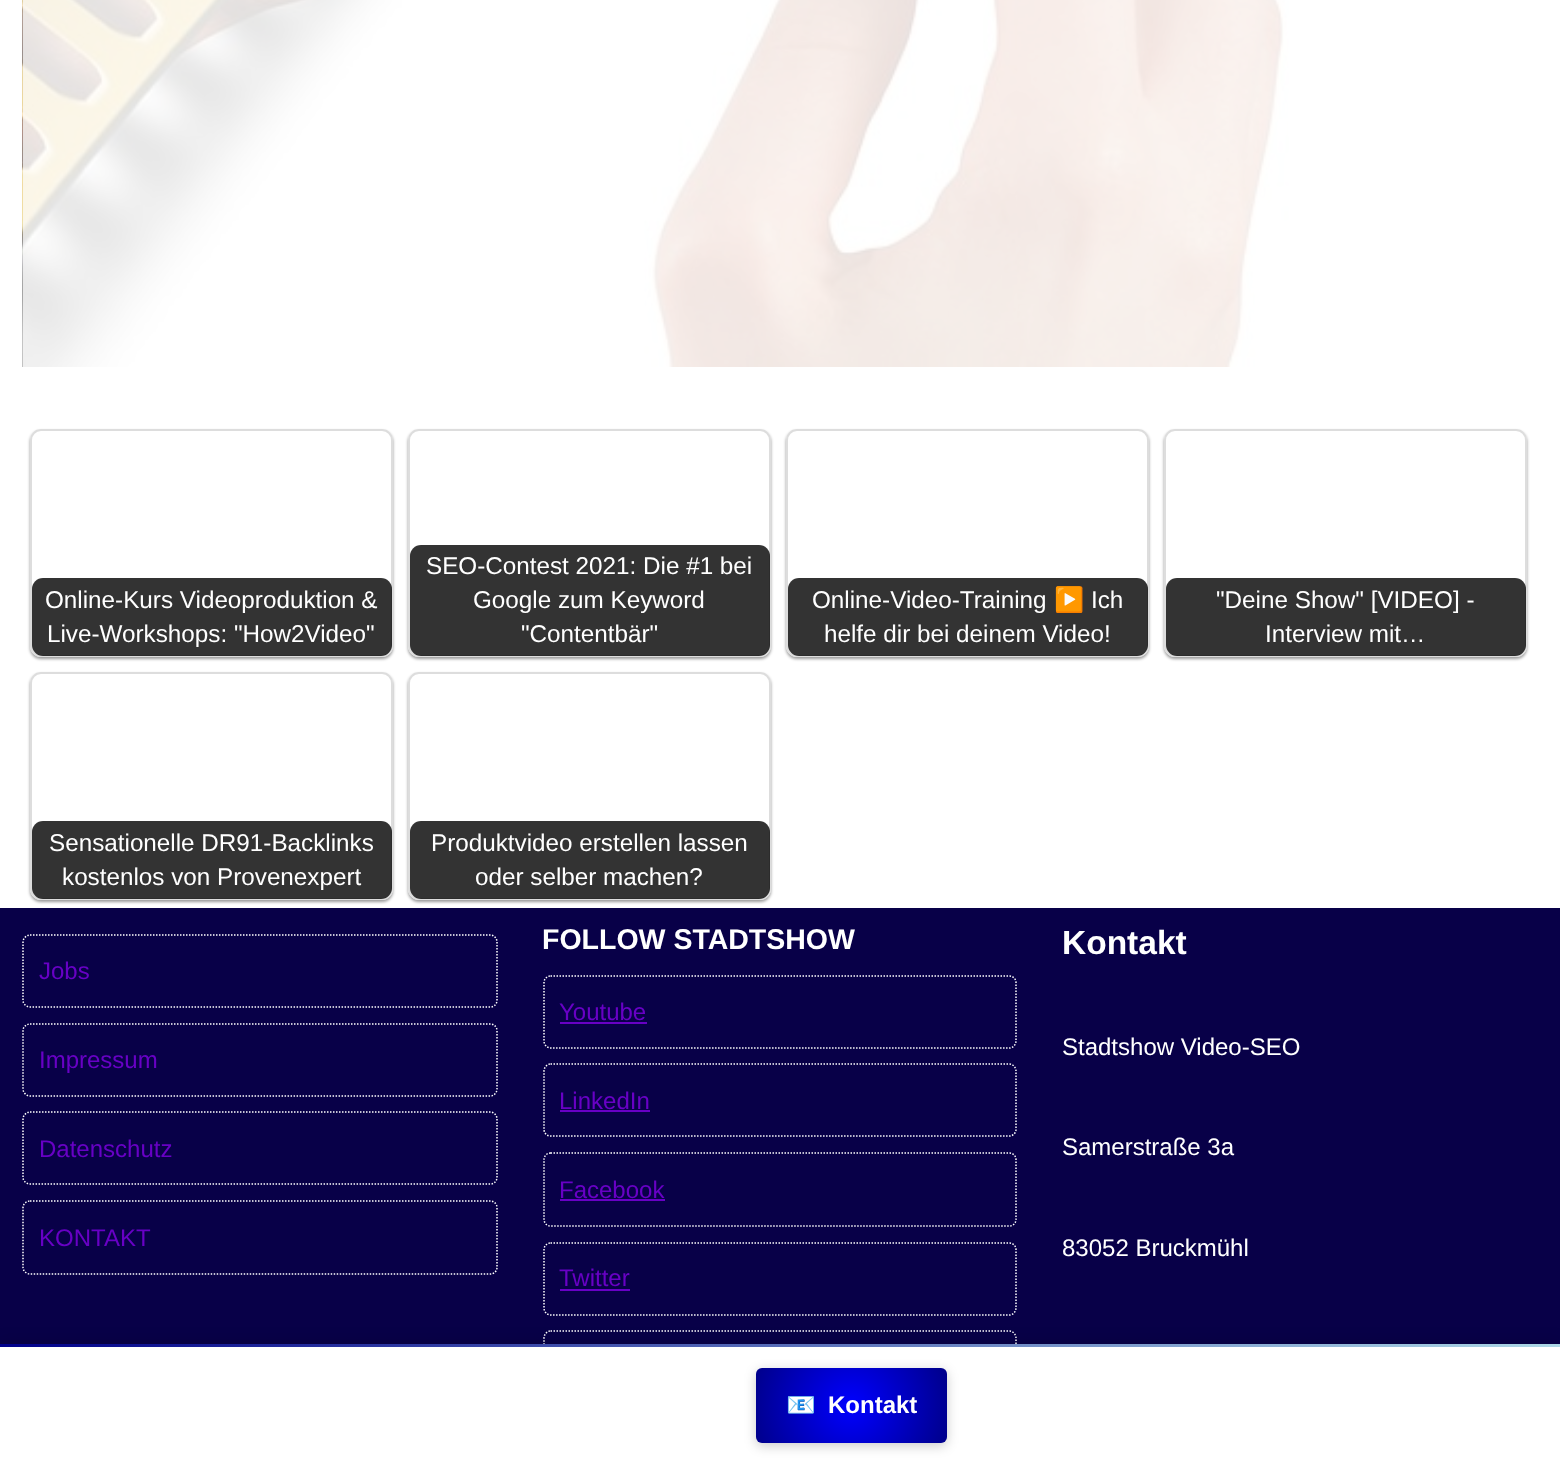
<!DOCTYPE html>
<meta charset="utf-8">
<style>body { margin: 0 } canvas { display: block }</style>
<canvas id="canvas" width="1560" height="1463"></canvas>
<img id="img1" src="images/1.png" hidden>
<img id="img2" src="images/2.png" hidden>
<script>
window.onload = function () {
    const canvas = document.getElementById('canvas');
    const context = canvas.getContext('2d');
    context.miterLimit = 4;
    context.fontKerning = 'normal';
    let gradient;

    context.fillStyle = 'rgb(255, 255, 255)';
    context.fillRect(0, 0, 1560, 1463);
    context.drawImage(document.getElementById('img1'), 22, 0, 1267, 367);
    context.save();
    context.beginPath();
    context.moveTo(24, 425);
    context.lineTo(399, 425);
    context.lineTo(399, 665);
    context.lineTo(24, 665);
    context.closePath();
    context.moveTo(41, 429);
    context.lineTo(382, 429);
    context.bezierCurveTo(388, 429, 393, 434, 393, 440);
    context.lineTo(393, 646);
    context.bezierCurveTo(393, 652, 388, 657, 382, 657);
    context.lineTo(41, 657);
    context.bezierCurveTo(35, 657, 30, 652, 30, 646);
    context.lineTo(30, 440);
    context.bezierCurveTo(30, 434, 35, 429, 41, 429);
    context.closePath();
    context.clip('evenodd');
    context.fillStyle = 'rgba(0, 0, 0, 0.4)';
    context.filter = 'blur(1.5px)';
    context.beginPath();
    context.roundRect(30, 431, 363, 228, 11);
    context.fill();
    context.filter = 'none';
    context.restore();
    context.beginPath();
    context.roundRect(31, 430, 361, 226, 10);
    context.strokeStyle = 'rgb(221, 221, 221)';
    context.lineWidth = 2;
    context.stroke();
    context.fillStyle = 'rgba(0, 0, 0, 0.8)';
    context.beginPath();
    context.roundRect(32, 578, 360, 78, 11);
    context.fill();
    context.save();
    context.beginPath();
    context.moveTo(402, 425);
    context.lineTo(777, 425);
    context.lineTo(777, 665);
    context.lineTo(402, 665);
    context.closePath();
    context.moveTo(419, 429);
    context.lineTo(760, 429);
    context.bezierCurveTo(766, 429, 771, 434, 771, 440);
    context.lineTo(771, 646);
    context.bezierCurveTo(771, 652, 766, 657, 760, 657);
    context.lineTo(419, 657);
    context.bezierCurveTo(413, 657, 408, 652, 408, 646);
    context.lineTo(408, 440);
    context.bezierCurveTo(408, 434, 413, 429, 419, 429);
    context.closePath();
    context.clip('evenodd');
    context.fillStyle = 'rgba(0, 0, 0, 0.4)';
    context.filter = 'blur(1.5px)';
    context.beginPath();
    context.roundRect(408, 431, 363, 228, 11);
    context.fill();
    context.filter = 'none';
    context.restore();
    context.beginPath();
    context.roundRect(409, 430, 361, 226, 10);
    context.stroke();
    context.beginPath();
    context.roundRect(410, 545, 360, 111, 11);
    context.fill();
    context.save();
    context.beginPath();
    context.moveTo(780, 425);
    context.lineTo(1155, 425);
    context.lineTo(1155, 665);
    context.lineTo(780, 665);
    context.closePath();
    context.moveTo(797, 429);
    context.lineTo(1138, 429);
    context.bezierCurveTo(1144, 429, 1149, 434, 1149, 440);
    context.lineTo(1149, 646);
    context.bezierCurveTo(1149, 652, 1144, 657, 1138, 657);
    context.lineTo(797, 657);
    context.bezierCurveTo(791, 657, 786, 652, 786, 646);
    context.lineTo(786, 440);
    context.bezierCurveTo(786, 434, 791, 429, 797, 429);
    context.closePath();
    context.clip('evenodd');
    context.fillStyle = 'rgba(0, 0, 0, 0.4)';
    context.filter = 'blur(1.5px)';
    context.beginPath();
    context.roundRect(786, 431, 363, 228, 11);
    context.fill();
    context.filter = 'none';
    context.restore();
    context.beginPath();
    context.roundRect(787, 430, 361, 226, 10);
    context.stroke();
    context.beginPath();
    context.roundRect(788, 578, 360, 78, 11);
    context.fill();
    context.save();
    context.beginPath();
    context.moveTo(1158, 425);
    context.lineTo(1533, 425);
    context.lineTo(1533, 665);
    context.lineTo(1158, 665);
    context.closePath();
    context.moveTo(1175, 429);
    context.lineTo(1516, 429);
    context.bezierCurveTo(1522, 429, 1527, 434, 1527, 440);
    context.lineTo(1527, 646);
    context.bezierCurveTo(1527, 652, 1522, 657, 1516, 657);
    context.lineTo(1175, 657);
    context.bezierCurveTo(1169, 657, 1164, 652, 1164, 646);
    context.lineTo(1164, 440);
    context.bezierCurveTo(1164, 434, 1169, 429, 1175, 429);
    context.closePath();
    context.clip('evenodd');
    context.fillStyle = 'rgba(0, 0, 0, 0.4)';
    context.filter = 'blur(1.5px)';
    context.beginPath();
    context.roundRect(1164, 431, 363, 228, 11);
    context.fill();
    context.filter = 'none';
    context.restore();
    context.beginPath();
    context.roundRect(1165, 430, 361, 226, 10);
    context.stroke();
    context.beginPath();
    context.roundRect(1166, 578, 360, 78, 11);
    context.fill();
    context.save();
    context.beginPath();
    context.moveTo(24, 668);
    context.lineTo(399, 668);
    context.lineTo(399, 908);
    context.lineTo(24, 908);
    context.closePath();
    context.moveTo(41, 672);
    context.lineTo(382, 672);
    context.bezierCurveTo(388, 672, 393, 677, 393, 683);
    context.lineTo(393, 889);
    context.bezierCurveTo(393, 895, 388, 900, 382, 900);
    context.lineTo(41, 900);
    context.bezierCurveTo(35, 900, 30, 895, 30, 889);
    context.lineTo(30, 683);
    context.bezierCurveTo(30, 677, 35, 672, 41, 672);
    context.closePath();
    context.clip('evenodd');
    context.fillStyle = 'rgba(0, 0, 0, 0.4)';
    context.filter = 'blur(1.5px)';
    context.beginPath();
    context.roundRect(30, 674, 363, 228, 11);
    context.fill();
    context.filter = 'none';
    context.restore();
    context.beginPath();
    context.roundRect(31, 673, 361, 226, 10);
    context.stroke();
    context.beginPath();
    context.roundRect(32, 821, 360, 78, 11);
    context.fill();
    context.save();
    context.beginPath();
    context.moveTo(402, 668);
    context.lineTo(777, 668);
    context.lineTo(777, 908);
    context.lineTo(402, 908);
    context.closePath();
    context.moveTo(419, 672);
    context.lineTo(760, 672);
    context.bezierCurveTo(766, 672, 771, 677, 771, 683);
    context.lineTo(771, 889);
    context.bezierCurveTo(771, 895, 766, 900, 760, 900);
    context.lineTo(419, 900);
    context.bezierCurveTo(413, 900, 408, 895, 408, 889);
    context.lineTo(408, 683);
    context.bezierCurveTo(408, 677, 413, 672, 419, 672);
    context.closePath();
    context.clip('evenodd');
    context.fillStyle = 'rgba(0, 0, 0, 0.4)';
    context.filter = 'blur(1.5px)';
    context.beginPath();
    context.roundRect(408, 674, 363, 228, 11);
    context.fill();
    context.filter = 'none';
    context.restore();
    context.beginPath();
    context.roundRect(409, 673, 361, 226, 10);
    context.stroke();
    context.beginPath();
    context.roundRect(410, 821, 360, 78, 11);
    context.fill();
    context.fillStyle = 'rgb(8, 0, 72)';
    context.fillRect(0, 908, 1560, 436);
    context.beginPath();
    context.moveTo(30, 935);
    context.lineTo(490.5, 935);
    context.bezierCurveTo(494, 935, 497, 938.5, 497, 942);
    context.lineTo(497, 1000.5);
    context.bezierCurveTo(497, 1004, 494, 1007, 490.5, 1007);
    context.lineTo(30, 1007);
    context.bezierCurveTo(26.5, 1007, 23, 1004, 23, 1000.5);
    context.lineTo(23, 942);
    context.bezierCurveTo(23, 938.5, 26.5, 935, 30, 935);
    context.closePath();
    context.strokeStyle = 'rgb(255, 255, 255)';
    context.lineWidth = 1.5;
    context.setLineDash([1.5, 1.5]);
    context.stroke();
    context.beginPath();
    context.moveTo(30, 1024);
    context.lineTo(490.5, 1024);
    context.bezierCurveTo(494, 1024, 497, 1027, 497, 1030.5);
    context.lineTo(497, 1089);
    context.bezierCurveTo(497, 1092.5, 494, 1096, 490.5, 1096);
    context.lineTo(30, 1096);
    context.bezierCurveTo(26.5, 1096, 23, 1092.5, 23, 1089);
    context.lineTo(23, 1030.5);
    context.bezierCurveTo(23, 1027, 26.5, 1024, 30, 1024);
    context.closePath();
    context.stroke();
    context.beginPath();
    context.moveTo(30, 1112);
    context.lineTo(490.5, 1112);
    context.bezierCurveTo(494, 1112, 497, 1115.5, 497, 1119);
    context.lineTo(497, 1177.5);
    context.bezierCurveTo(497, 1181, 494, 1184, 490.5, 1184);
    context.lineTo(30, 1184);
    context.bezierCurveTo(26.5, 1184, 23, 1181, 23, 1177.5);
    context.lineTo(23, 1119);
    context.bezierCurveTo(23, 1115.5, 26.5, 1112, 30, 1112);
    context.closePath();
    context.stroke();
    context.beginPath();
    context.moveTo(30, 1201);
    context.lineTo(490.5, 1201);
    context.bezierCurveTo(494, 1201, 497, 1204, 497, 1207.5);
    context.lineTo(497, 1267.5);
    context.bezierCurveTo(497, 1271, 494, 1274, 490.5, 1274);
    context.lineTo(30, 1274);
    context.bezierCurveTo(26.5, 1274, 23, 1271, 23, 1267.5);
    context.lineTo(23, 1207.5);
    context.bezierCurveTo(23, 1204, 26.5, 1201, 30, 1201);
    context.closePath();
    context.stroke();
    context.beginPath();
    context.moveTo(550.5, 976);
    context.lineTo(1009.5, 976);
    context.bezierCurveTo(1013, 976, 1016, 979, 1016, 982.5);
    context.lineTo(1016, 1041);
    context.bezierCurveTo(1016, 1044.5, 1013, 1048, 1009.5, 1048);
    context.lineTo(550.5, 1048);
    context.bezierCurveTo(547, 1048, 544, 1044.5, 544, 1041);
    context.lineTo(544, 982.5);
    context.bezierCurveTo(544, 979, 547, 976, 550.5, 976);
    context.closePath();
    context.stroke();
    context.fillStyle = 'rgb(104, 0, 197)';
    context.fillRect(560, 1022, 87, 2);
    context.beginPath();
    context.moveTo(550.5, 1064);
    context.lineTo(1009.5, 1064);
    context.bezierCurveTo(1013, 1064, 1016, 1067.5, 1016, 1071);
    context.lineTo(1016, 1129.5);
    context.bezierCurveTo(1016, 1133, 1013, 1136, 1009.5, 1136);
    context.lineTo(550.5, 1136);
    context.bezierCurveTo(547, 1136, 544, 1133, 544, 1129.5);
    context.lineTo(544, 1071);
    context.bezierCurveTo(544, 1067.5, 547, 1064, 550.5, 1064);
    context.closePath();
    context.stroke();
    context.fillRect(560, 1110, 90, 2);
    context.beginPath();
    context.moveTo(550.5, 1153);
    context.lineTo(1009.5, 1153);
    context.bezierCurveTo(1013, 1153, 1016, 1156, 1016, 1159.5);
    context.lineTo(1016, 1219.5);
    context.bezierCurveTo(1016, 1223, 1013, 1226, 1009.5, 1226);
    context.lineTo(550.5, 1226);
    context.bezierCurveTo(547, 1226, 544, 1223, 544, 1219.5);
    context.lineTo(544, 1159.5);
    context.bezierCurveTo(544, 1156, 547, 1153, 550.5, 1153);
    context.closePath();
    context.stroke();
    context.fillRect(560, 1199, 105, 2);
    context.beginPath();
    context.moveTo(550.5, 1243);
    context.lineTo(1009.5, 1243);
    context.bezierCurveTo(1013, 1243, 1016, 1246, 1016, 1249.5);
    context.lineTo(1016, 1308);
    context.bezierCurveTo(1016, 1311.5, 1013, 1315, 1009.5, 1315);
    context.lineTo(550.5, 1315);
    context.bezierCurveTo(547, 1315, 544, 1311.5, 544, 1308);
    context.lineTo(544, 1249.5);
    context.bezierCurveTo(544, 1246, 547, 1243, 550.5, 1243);
    context.closePath();
    context.stroke();
    context.fillRect(560, 1289, 70, 2);
    context.beginPath();
    context.moveTo(550.5, 1331);
    context.lineTo(1009.5, 1331);
    context.bezierCurveTo(1013, 1331, 1016, 1334.5, 1016, 1338);
    context.lineTo(1016, 1396.5);
    context.bezierCurveTo(1016, 1400, 1013, 1403, 1009.5, 1403);
    context.lineTo(550.5, 1403);
    context.bezierCurveTo(547, 1403, 544, 1400, 544, 1396.5);
    context.lineTo(544, 1338);
    context.bezierCurveTo(544, 1334.5, 547, 1331, 550.5, 1331);
    context.closePath();
    context.stroke();
    context.fillStyle = 'rgba(0, 0, 0, 0.1)';
    context.filter = 'blur(7.5px)';
    context.beginPath();
    context.rect(0, 1341, 1560, 120);
    context.fill();
    context.filter = 'none';
    context.fillStyle = 'rgb(255, 255, 255)';
    context.fillRect(0, 1347, 1560, 116);
    context.drawImage(document.getElementById('img2'), 0, 1344, 1560, 3);
    context.fillStyle = 'rgba(0, 0, 0, 0.2)';
    context.filter = 'blur(6px)';
    context.beginPath();
    context.roundRect(756, 1371, 191, 75, 6);
    context.fill();
    context.filter = 'none';
    gradient = context.createRadialGradient(851, 1406, 0, 851, 1406, 102);
    gradient.addColorStop(0, 'rgb(0, 0, 255)');
    gradient.addColorStop(1, 'rgb(0, 0, 139)');
    context.fillStyle = gradient;
    context.beginPath();
    context.roundRect(756, 1368, 191, 75, 6);
    context.fill();
    context.font = '24.25px Liberation Sans';
    context.fillStyle = 'rgb(255, 255, 255)';
    context.fillText('Online-Kurs Videoproduktion &', 45, 608);
    context.fillText('Live-Workshops: "How2Video"', 47, 642);
    context.fillText('SEO-Contest 2021: Die #1 bei', 426, 574);
    context.fillText('Google zum Keyword', 473, 608);
    context.fillText('"Contentbär"', 521, 642);
    context.fillText('Online-Video-Training', 812, 608);
    context.font = '24.25px Noto Color Emoji';
    context.fillText('▶️', 1054, 608);
    context.font = '24.25px Liberation Sans';
    context.fillText('Ich', 1091, 608);
    context.fillText('helfe dir bei deinem Video!', 824, 642);
    context.fillText('"Deine Show" [VIDEO] -', 1216, 608);
    context.fillText('Interview mit…', 1265, 642);
    context.fillText('Sensationelle DR91-Backlinks', 49, 851);
    context.fillText('kostenlos von Provenexpert', 62, 885);
    context.fillText('Produktvideo erstellen lassen', 431, 851);
    context.fillText('oder selber machen?', 475, 885);
    context.font = '24px Liberation Sans';
    context.fillStyle = 'rgb(104, 0, 197)';
    context.fillText('Jobs', 39, 979);
    context.fillText('Impressum', 39, 1068);
    context.fillText('Datenschutz', 39, 1157);
    context.fillText('KONTAKT', 39, 1246);
    context.font = 'bold 28.5px Liberation Sans';
    context.fillStyle = 'rgb(255, 255, 255)';
    context.fillText('FOLLOW STADTSHOW', 542, 949);
    context.font = '24px Liberation Sans';
    context.fillStyle = 'rgb(104, 0, 197)';
    context.fillText('Youtube', 559, 1020);
    context.fillText('LinkedIn', 559, 1109);
    context.fillText('Facebook', 559, 1198);
    context.fillText('Twitter', 559, 1286);
    context.font = 'bold 33.5px Liberation Sans';
    context.fillStyle = 'rgb(255, 255, 255)';
    context.fillText('Kontakt', 1062, 954);
    context.font = '24px Liberation Sans';
    context.fillText('Stadtshow Video-SEO', 1062, 1055);
    context.fillText('Samerstraße 3a', 1062, 1155);
    context.fillText('83052 Bruckmühl', 1062, 1256);
    context.font = 'bold 24px Noto Color Emoji';
    context.fillText('📧', 786, 1413);
    context.font = 'bold 24px Liberation Sans';
    context.fillText('Kontakt', 828, 1413);
};
</script>
